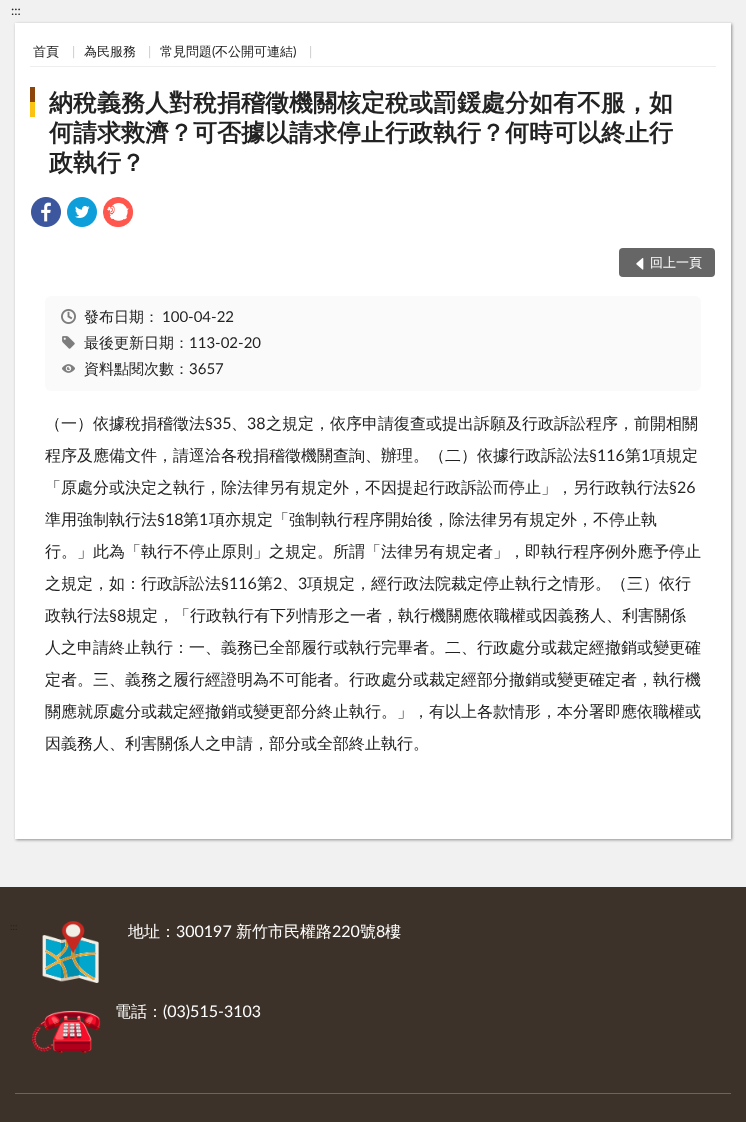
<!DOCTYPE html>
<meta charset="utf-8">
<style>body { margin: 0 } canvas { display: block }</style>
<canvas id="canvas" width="746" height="1122"></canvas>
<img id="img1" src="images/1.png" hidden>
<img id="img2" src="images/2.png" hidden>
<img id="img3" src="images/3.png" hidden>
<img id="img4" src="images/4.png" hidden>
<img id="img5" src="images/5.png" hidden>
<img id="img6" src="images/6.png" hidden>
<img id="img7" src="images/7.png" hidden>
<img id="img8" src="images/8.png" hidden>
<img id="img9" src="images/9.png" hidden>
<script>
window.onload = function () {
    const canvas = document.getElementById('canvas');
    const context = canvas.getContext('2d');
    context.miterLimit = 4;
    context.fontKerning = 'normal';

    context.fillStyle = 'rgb(61, 50, 41)';
    context.fillRect(0, 0, 746, 1122);
    context.fillStyle = 'rgb(241, 241, 241)';
    context.fillRect(0, 0, 746, 887);
    context.fillStyle = 'rgba(0, 0, 0, 0.4)';
    context.filter = 'blur(1.5px)';
    context.beginPath();
    context.rect(16, 24, 716, 816);
    context.fill();
    context.filter = 'none';
    context.fillStyle = 'rgb(255, 255, 255)';
    context.fillRect(15, 23, 716, 816);
    context.fillStyle = 'rgb(238, 238, 238)';
    context.fillRect(30, 66, 686, 1);
    context.fillStyle = 'rgb(141, 69, 12)';
    context.fillRect(30, 87, 5, 15);
    context.fillStyle = 'rgb(252, 194, 17)';
    context.fillRect(30, 102, 5, 15);
    context.drawImage(document.getElementById('img1'), 31, 197, 30, 30);
    context.drawImage(document.getElementById('img2'), 67, 197, 30, 30);
    context.drawImage(document.getElementById('img3'), 103, 197, 30, 30);
    context.fillStyle = 'rgb(102, 102, 102)';
    context.beginPath();
    context.roundRect(619, 248, 96, 29, 4);
    context.fill();
    context.drawImage(document.getElementById('img4'), 636, 258, 8, 12);
    context.fillStyle = 'rgb(250, 250, 250)';
    context.beginPath();
    context.roundRect(45, 296, 656, 95, 6);
    context.fill();
    context.drawImage(document.getElementById('img5'), 61, 309, 15, 15);
    context.drawImage(document.getElementById('img6'), 62, 336, 13, 13);
    context.drawImage(document.getElementById('img7'), 62, 364, 13, 9);
    context.drawImage(document.getElementById('img8'), 42, 921, 57, 62);
    context.drawImage(document.getElementById('img9'), 32, 1011, 69, 42);
    context.fillStyle = 'rgb(102, 102, 102)';
    context.fillRect(15, 1093, 716, 1);
    context.font = '13px Lato';
    context.fillStyle = 'rgb(34, 34, 34)';
    context.fillText(':::', 11, 15);
    context.font = '500 13px WenQuanYi Zen Hei';
    context.fillText('首頁', 33, 56);
    context.font = '13px Lato';
    context.fillStyle = 'rgb(204, 204, 204)';
    context.fillText('|', 72, 56);
    context.font = '500 13px WenQuanYi Zen Hei';
    context.fillStyle = 'rgb(34, 34, 34)';
    context.fillText('為民服務', 84, 56);
    context.font = '13px Lato';
    context.fillStyle = 'rgb(204, 204, 204)';
    context.fillText('|', 148, 56);
    context.font = '500 13px WenQuanYi Zen Hei';
    context.fillStyle = 'rgb(34, 34, 34)';
    context.fillText('常見問題', 160, 56);
    context.font = '13px Lato';
    context.fillText('(', 212, 56);
    context.font = '500 13px WenQuanYi Zen Hei';
    context.fillText('不公開可連結', 215, 56);
    context.font = '13px Lato';
    context.fillText(')', 293, 56);
    context.fillStyle = 'rgb(204, 204, 204)';
    context.fillText('|', 309, 56);
    context.font = 'bold 24px WenQuanYi Zen Hei';
    context.fillStyle = 'rgb(34, 34, 34)';
    context.fillText('納稅義務人對稅捐稽徵機關核定稅或罰鍰處分如有不服，如', 49, 111);
    context.fillText('何請求救濟？可否據以請求停止行政執行？何時可以終止行', 49, 141);
    context.fillText('政執行？', 49, 171);
    context.font = '500 13px WenQuanYi Zen Hei';
    context.fillStyle = 'rgb(255, 255, 255)';
    context.fillText('回上一頁', 650, 267);
    context.font = '500 15px WenQuanYi Zen Hei';
    context.fillStyle = 'rgb(34, 34, 34)';
    context.fillText('發布日期：', 84, 322);
    context.font = '15px Lato';
    context.fillText('100-04-22', 162, 322);
    context.font = '500 15px WenQuanYi Zen Hei';
    context.fillText('最後更新日期：', 84, 348);
    context.font = '15px Lato';
    context.fillText('113-02-20', 189, 348);
    context.font = '500 15px WenQuanYi Zen Hei';
    context.fillText('資料點閱次數：', 84, 374);
    context.font = '15px Lato';
    context.fillText('3657', 189, 374);
    context.font = '500 16px WenQuanYi Zen Hei';
    context.fillText('（一）依據稅捐稽徵法', 45, 429);
    context.font = '16px Lato';
    context.fillText('§35', 205, 429);
    context.font = '500 16px WenQuanYi Zen Hei';
    context.fillText('、', 231, 429);
    context.font = '16px Lato';
    context.fillText('38', 247, 429);
    context.font = '500 16px WenQuanYi Zen Hei';
    context.fillText('之規定，依序申請復查或提出訴願及行政訴訟程序，前開相關', 266, 429);
    context.fillText('程序及應備文件，請逕洽各稅捐稽徵機關查詢、辦理。（二）依據行政訴訟法', 45, 461);
    context.font = '16px Lato';
    context.fillText('§116', 589, 461);
    context.font = '500 16px WenQuanYi Zen Hei';
    context.fillText('第', 625, 461);
    context.font = '16px Lato';
    context.fillText('1', 641, 461);
    context.font = '500 16px WenQuanYi Zen Hei';
    context.fillText('項規定', 650, 461);
    context.fillText('「原處分或決定之執行，除法律另有規定外，不因提起行政訴訟而停止」，另行政執行法', 45, 493);
    context.font = '16px Lato';
    context.fillText('§26', 669, 493);
    context.font = '500 16px WenQuanYi Zen Hei';
    context.fillText('準用強制執行法', 45, 525);
    context.font = '16px Lato';
    context.fillText('§18', 157, 525);
    context.font = '500 16px WenQuanYi Zen Hei';
    context.fillText('第', 183, 525);
    context.font = '16px Lato';
    context.fillText('1', 199, 525);
    context.font = '500 16px WenQuanYi Zen Hei';
    context.fillText('項亦規定「強制執行程序開始後，除法律另有規定外，不停止執', 209, 525);
    context.fillText('行。」此為「執行不停止原則」之規定。所謂「法律另有規定者」，即執行程序例外應予停止', 45, 557);
    context.fillText('之規定，如：行政訴訟法', 45, 589);
    context.font = '16px Lato';
    context.fillText('§116', 221, 589);
    context.font = '500 16px WenQuanYi Zen Hei';
    context.fillText('第', 257, 589);
    context.font = '16px Lato';
    context.fillText('2', 273, 589);
    context.font = '500 16px WenQuanYi Zen Hei';
    context.fillText('、', 282, 589);
    context.font = '16px Lato';
    context.fillText('3', 298, 589);
    context.font = '500 16px WenQuanYi Zen Hei';
    context.fillText('項規定，經行政法院裁定停止執行之情形。（三）依行', 307, 589);
    context.fillText('政執行法', 45, 621);
    context.font = '16px Lato';
    context.fillText('§8', 109, 621);
    context.font = '500 16px WenQuanYi Zen Hei';
    context.fillText('規定，「行政執行有下列情形之一者，執行機關應依職權或因義務人、利害關係', 126, 621);
    context.fillText('人之申請終止執行：一、義務已全部履行或執行完畢者。二、行政處分或裁定經撤銷或變更確', 45, 653);
    context.fillText('定者。三、義務之履行經證明為不可能者。行政處分或裁定經部分撤銷或變更確定者，執行機', 45, 685);
    context.fillText('關應就原處分或裁定經撤銷或變更部分終止執行。」，有以上各款情形，本分署即應依職權或', 45, 717);
    context.fillText('因義務人、利害關係人之申請，部分或全部終止執行。', 45, 749);
    context.font = '10px Lato';
    context.fillText(':::', 10, 930);
    context.font = '500 16px WenQuanYi Zen Hei';
    context.fillStyle = 'rgb(255, 255, 255)';
    context.fillText('地址：', 128, 937);
    context.font = '16px Lato';
    context.fillText('300197', 176, 937);
    context.font = '500 16px WenQuanYi Zen Hei';
    context.fillText('新竹市民權路', 236, 937);
    context.font = '16px Lato';
    context.fillText('220', 332, 937);
    context.font = '500 16px WenQuanYi Zen Hei';
    context.fillText('號', 360, 937);
    context.font = '16px Lato';
    context.fillText('8', 376, 937);
    context.font = '500 16px WenQuanYi Zen Hei';
    context.fillText('樓', 385, 937);
    context.fillText('電話：', 115, 1017);
    context.font = '16px Lato';
    context.fillText('(03)515-3103', 163, 1017);
};
</script>
